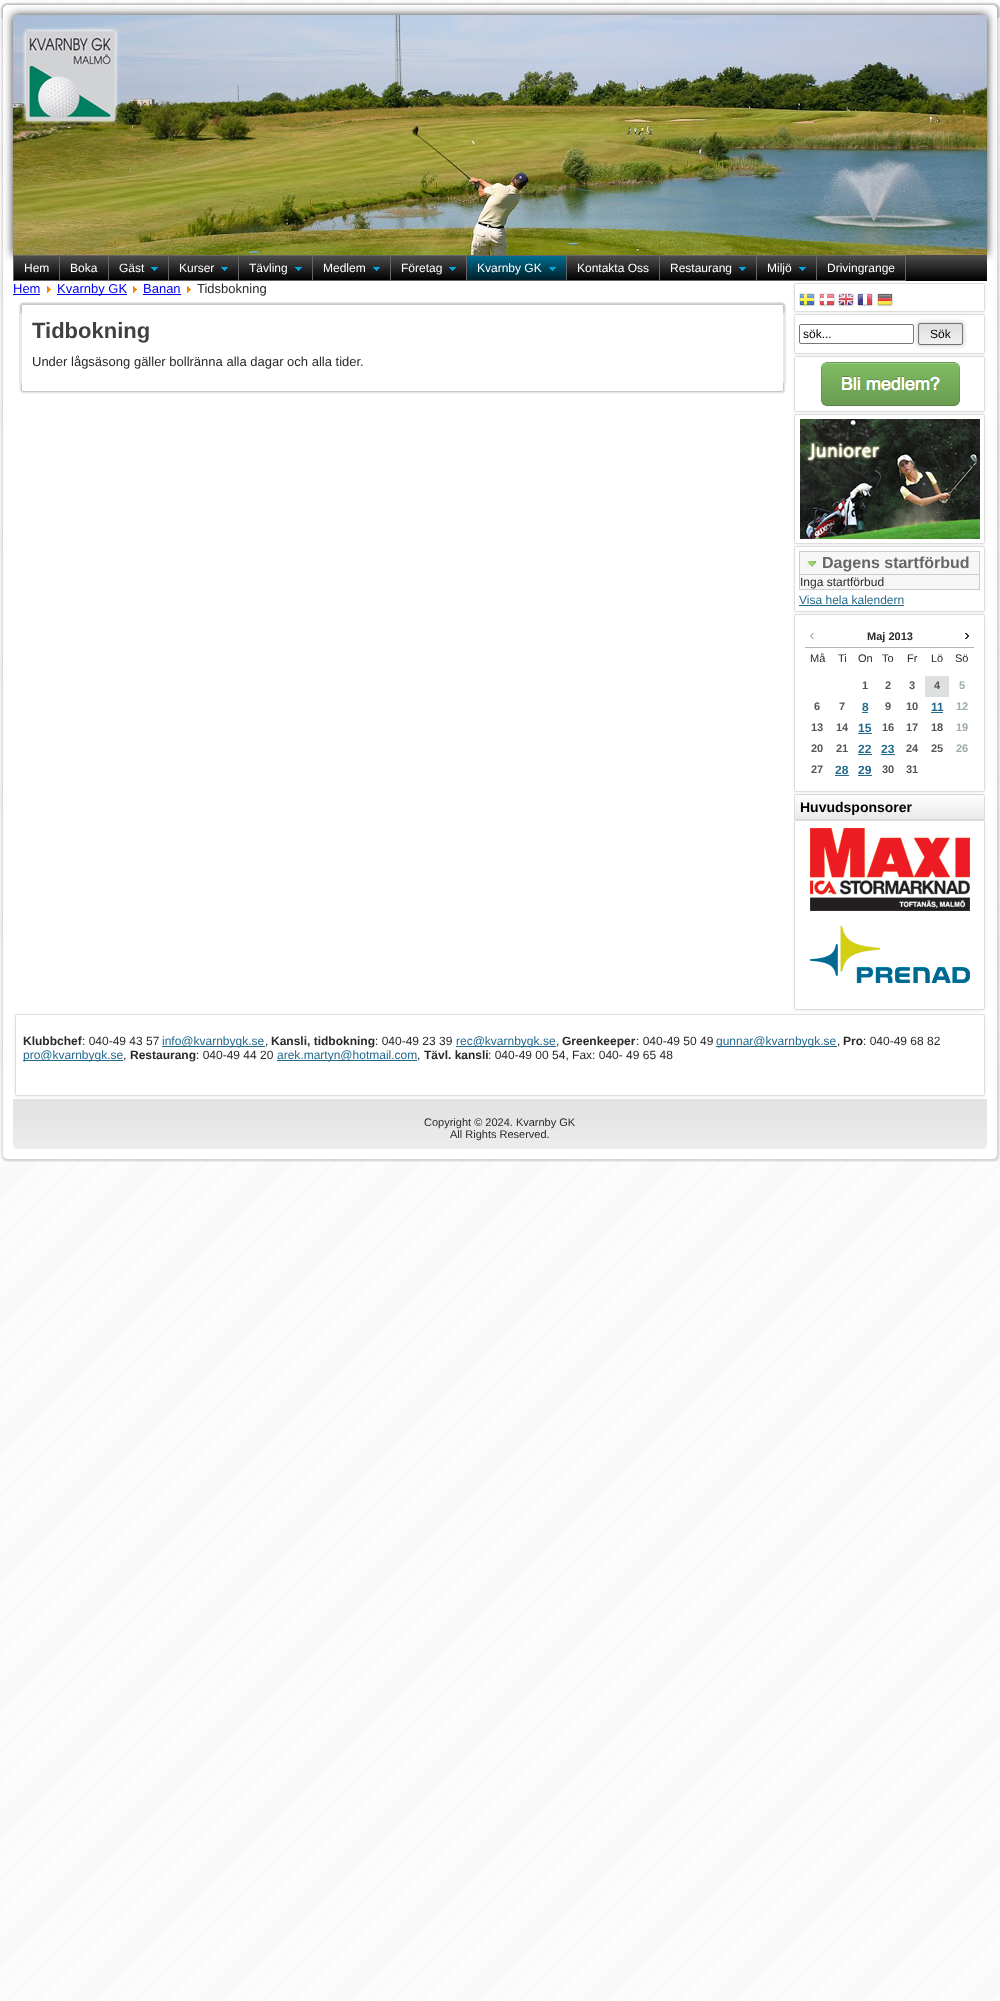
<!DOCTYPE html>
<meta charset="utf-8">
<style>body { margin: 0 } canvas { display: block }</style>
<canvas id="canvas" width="1000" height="2001"></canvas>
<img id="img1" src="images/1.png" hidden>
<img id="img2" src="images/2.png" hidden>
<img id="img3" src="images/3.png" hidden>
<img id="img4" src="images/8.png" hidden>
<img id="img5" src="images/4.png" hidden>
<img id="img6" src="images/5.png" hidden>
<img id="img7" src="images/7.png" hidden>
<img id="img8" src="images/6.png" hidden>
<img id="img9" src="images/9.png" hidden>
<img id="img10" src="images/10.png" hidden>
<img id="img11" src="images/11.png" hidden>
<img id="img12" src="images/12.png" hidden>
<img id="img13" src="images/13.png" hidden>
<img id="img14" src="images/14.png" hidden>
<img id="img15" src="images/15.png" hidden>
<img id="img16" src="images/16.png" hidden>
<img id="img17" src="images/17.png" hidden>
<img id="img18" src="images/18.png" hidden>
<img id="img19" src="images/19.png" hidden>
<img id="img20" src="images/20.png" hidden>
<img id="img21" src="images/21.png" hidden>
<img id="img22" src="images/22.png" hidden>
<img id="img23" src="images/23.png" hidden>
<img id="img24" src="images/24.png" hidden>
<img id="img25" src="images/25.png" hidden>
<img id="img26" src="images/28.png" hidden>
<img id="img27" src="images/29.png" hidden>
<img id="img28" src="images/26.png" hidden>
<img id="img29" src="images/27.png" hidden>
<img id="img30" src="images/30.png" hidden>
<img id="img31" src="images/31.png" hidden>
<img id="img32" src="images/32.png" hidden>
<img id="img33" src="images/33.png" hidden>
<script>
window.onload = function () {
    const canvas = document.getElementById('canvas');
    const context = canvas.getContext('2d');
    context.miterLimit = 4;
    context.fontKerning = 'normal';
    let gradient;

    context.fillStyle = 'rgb(255, 255, 255)';
    context.fillRect(0, 0, 1000, 2001);
    context.drawImage(document.getElementById('img1'), 0, 0, 1000, 2001);
    context.drawImage(document.getElementById('img2'), 0, 2, 984, 1160);
    context.drawImage(document.getElementById('img3'), 0, 2, 984, 16);
    context.drawImage(document.getElementById('img4'), 984, 18, 16, 1128);
    context.drawImage(document.getElementById('img5'), 984, 2, 16, 1160);
    context.drawImage(document.getElementById('img6'), 984, 2, 16, 16);
    context.drawImage(document.getElementById('img7'), 0, 18, 984, 1128);
    context.fillStyle = 'rgb(51, 51, 51)';
    context.filter = 'blur(5px)';
    context.beginPath();
    context.rect(13, 15, 974, 240);
    context.fill();
    context.filter = 'none';
    context.drawImage(document.getElementById('img8'), 13, 15, 974, 240);
    context.save();
    context.beginPath();
    context.moveTo(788, 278);
    context.lineTo(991, 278);
    context.lineTo(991, 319);
    context.lineTo(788, 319);
    context.closePath();
    context.moveTo(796, 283);
    context.lineTo(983, 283);
    context.bezierCurveTo(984, 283, 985, 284, 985, 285);
    context.lineTo(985, 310);
    context.bezierCurveTo(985, 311, 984, 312, 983, 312);
    context.lineTo(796, 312);
    context.bezierCurveTo(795, 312, 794, 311, 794, 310);
    context.lineTo(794, 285);
    context.bezierCurveTo(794, 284, 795, 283, 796, 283);
    context.closePath();
    context.clip('evenodd');
    context.fillStyle = 'rgba(0, 0, 0, 0.07)';
    context.filter = 'blur(1.5px)';
    context.beginPath();
    context.roundRect(794, 284, 191, 29, 2);
    context.fill();
    context.filter = 'none';
    context.restore();
    gradient = context.createLinearGradient(500, 255, 500, 281);
    gradient.addColorStop(0, 'rgb(77, 77, 77)');
    gradient.addColorStop(1, 'rgb(0, 0, 0)');
    context.fillStyle = gradient;
    context.fillRect(906, 255, 81, 26);
    gradient = context.createLinearGradient(37, 256, 37, 280);
    gradient.addColorStop(0, 'rgb(77, 77, 77)');
    gradient.addColorStop(1, 'rgb(0, 0, 0)');
    context.fillStyle = gradient;
    context.fillRect(14, 256, 45, 24);
    context.fillStyle = 'rgb(102, 102, 102)';
    context.fillRect(13, 255, 803, 1);
    context.fillRect(13, 280, 803, 1);
    context.fillRect(13, 255, 1, 26);
    gradient = context.createLinearGradient(84, 256, 84, 280);
    gradient.addColorStop(0, 'rgb(77, 77, 77)');
    gradient.addColorStop(1, 'rgb(0, 0, 0)');
    context.fillStyle = gradient;
    context.fillRect(60, 256, 48, 24);
    context.fillStyle = 'rgb(102, 102, 102)';
    context.fillRect(59, 255, 1, 26);
    gradient = context.createLinearGradient(139, 256, 139, 280);
    gradient.addColorStop(0, 'rgb(77, 77, 77)');
    gradient.addColorStop(1, 'rgb(0, 0, 0)');
    context.fillStyle = gradient;
    context.fillRect(109, 256, 59, 24);
    context.fillStyle = 'rgb(102, 102, 102)';
    context.fillRect(108, 255, 1, 26);
    context.drawImage(document.getElementById('img9'), 151, 267, 7, 4);
    gradient = context.createLinearGradient(204, 256, 204, 280);
    gradient.addColorStop(0, 'rgb(77, 77, 77)');
    gradient.addColorStop(1, 'rgb(0, 0, 0)');
    context.fillStyle = gradient;
    context.fillRect(169, 256, 69, 24);
    context.fillStyle = 'rgb(102, 102, 102)';
    context.fillRect(168, 255, 1, 26);
    context.drawImage(document.getElementById('img9'), 221, 267, 7, 4);
    gradient = context.createLinearGradient(276, 256, 276, 280);
    gradient.addColorStop(0, 'rgb(77, 77, 77)');
    gradient.addColorStop(1, 'rgb(0, 0, 0)');
    context.fillStyle = gradient;
    context.fillRect(239, 256, 73, 24);
    context.fillStyle = 'rgb(102, 102, 102)';
    context.fillRect(238, 255, 1, 26);
    context.drawImage(document.getElementById('img9'), 295, 267, 7, 4);
    gradient = context.createLinearGradient(352, 256, 352, 280);
    gradient.addColorStop(0, 'rgb(77, 77, 77)');
    gradient.addColorStop(1, 'rgb(0, 0, 0)');
    context.fillStyle = gradient;
    context.fillRect(313, 256, 77, 24);
    context.fillStyle = 'rgb(102, 102, 102)';
    context.fillRect(312, 255, 1, 26);
    context.drawImage(document.getElementById('img9'), 373, 267, 7, 4);
    gradient = context.createLinearGradient(429, 256, 429, 280);
    gradient.addColorStop(0, 'rgb(77, 77, 77)');
    gradient.addColorStop(1, 'rgb(0, 0, 0)');
    context.fillStyle = gradient;
    context.fillRect(391, 256, 75, 24);
    context.fillStyle = 'rgb(102, 102, 102)';
    context.fillRect(390, 255, 1, 26);
    context.drawImage(document.getElementById('img9'), 449, 267, 7, 4);
    gradient = context.createLinearGradient(517, 256, 517, 280);
    gradient.addColorStop(0, 'rgb(0, 110, 145)');
    gradient.addColorStop(1, 'rgb(0, 31, 41)');
    context.fillStyle = gradient;
    context.fillRect(467, 256, 99, 24);
    context.fillStyle = 'rgb(102, 102, 102)';
    context.fillRect(466, 255, 1, 26);
    context.drawImage(document.getElementById('img10'), 549, 267, 7, 4);
    gradient = context.createLinearGradient(613, 256, 613, 280);
    gradient.addColorStop(0, 'rgb(77, 77, 77)');
    gradient.addColorStop(1, 'rgb(0, 0, 0)');
    context.fillStyle = gradient;
    context.fillRect(567, 256, 92, 24);
    context.fillStyle = 'rgb(102, 102, 102)';
    context.fillRect(566, 255, 1, 26);
    gradient = context.createLinearGradient(708, 256, 708, 280);
    gradient.addColorStop(0, 'rgb(77, 77, 77)');
    gradient.addColorStop(1, 'rgb(0, 0, 0)');
    context.fillStyle = gradient;
    context.fillRect(660, 256, 96, 24);
    context.fillStyle = 'rgb(102, 102, 102)';
    context.fillRect(659, 255, 1, 26);
    context.drawImage(document.getElementById('img9'), 739, 267, 7, 4);
    gradient = context.createLinearGradient(787, 256, 787, 280);
    gradient.addColorStop(0, 'rgb(77, 77, 77)');
    gradient.addColorStop(1, 'rgb(0, 0, 0)');
    context.fillStyle = gradient;
    context.fillRect(757, 256, 59, 24);
    context.fillStyle = 'rgb(102, 102, 102)';
    context.fillRect(756, 255, 1, 26);
    context.drawImage(document.getElementById('img9'), 799, 267, 7, 4);
    gradient = context.createLinearGradient(861, 256, 861, 280);
    gradient.addColorStop(0, 'rgb(77, 77, 77)');
    gradient.addColorStop(1, 'rgb(0, 0, 0)');
    context.fillStyle = gradient;
    context.fillRect(817, 256, 88, 24);
    context.strokeStyle = 'rgb(102, 102, 102)';
    context.strokeRect(816.5, 255.5, 89, 25);
    context.fillStyle = 'rgb(0, 0, 238)';
    context.fillRect(13, 294, 27, 1);
    context.drawImage(document.getElementById('img11'), 47, 286, 4, 7);
    context.fillRect(57, 294, 70, 1);
    context.drawImage(document.getElementById('img11'), 133, 286, 4, 7);
    context.fillRect(143, 294, 38, 1);
    context.drawImage(document.getElementById('img11'), 187, 286, 4, 7);
    context.drawImage(document.getElementById('img12'), 19, 302, 756, 92);
    context.drawImage(document.getElementById('img13'), 19, 302, 756, 11);
    context.fillStyle = 'rgb(232, 232, 232)';
    context.fillRect(783, 313, 3, 70);
    context.drawImage(document.getElementById('img14'), 775, 302, 11, 92);
    context.drawImage(document.getElementById('img15'), 775, 302, 11, 11);
    context.fillRect(19, 313, 3, 70);
    context.beginPath();
    context.roundRect(794.5, 283.5, 190, 28, 1.5);
    context.strokeStyle = 'rgb(221, 221, 221)';
    context.stroke();
    context.drawImage(document.getElementById('img16'), 799, 293, 16, 14);
    context.drawImage(document.getElementById('img17'), 819, 293, 16, 14);
    context.drawImage(document.getElementById('img18'), 838, 293, 16, 14);
    context.drawImage(document.getElementById('img19'), 857, 293, 16, 14);
    context.drawImage(document.getElementById('img20'), 877, 293, 16, 14);
    context.save();
    context.beginPath();
    context.moveTo(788, 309);
    context.lineTo(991, 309);
    context.lineTo(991, 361);
    context.lineTo(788, 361);
    context.closePath();
    context.moveTo(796, 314);
    context.lineTo(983, 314);
    context.bezierCurveTo(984, 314, 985, 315, 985, 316);
    context.lineTo(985, 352);
    context.bezierCurveTo(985, 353, 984, 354, 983, 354);
    context.lineTo(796, 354);
    context.bezierCurveTo(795, 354, 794, 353, 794, 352);
    context.lineTo(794, 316);
    context.bezierCurveTo(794, 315, 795, 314, 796, 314);
    context.closePath();
    context.clip('evenodd');
    context.fillStyle = 'rgba(0, 0, 0, 0.07)';
    context.filter = 'blur(1.5px)';
    context.beginPath();
    context.roundRect(794, 315, 191, 40, 2);
    context.fill();
    context.filter = 'none';
    context.restore();
    context.beginPath();
    context.roundRect(794.5, 314.5, 190, 39, 1.5);
    context.stroke();
    context.beginPath();
    context.roundRect(799.5, 324.5, 114, 19, 1.5);
    context.strokeStyle = 'rgb(118, 118, 118)';
    context.stroke();
    context.drawImage(document.getElementById('img21'), 914, 319, 42, 30);
    context.drawImage(document.getElementById('img22'), 956, 319, 11, 30);
    context.save();
    context.beginPath();
    context.moveTo(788, 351);
    context.lineTo(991, 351);
    context.lineTo(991, 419);
    context.lineTo(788, 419);
    context.closePath();
    context.moveTo(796, 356);
    context.lineTo(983, 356);
    context.bezierCurveTo(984, 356, 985, 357, 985, 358);
    context.lineTo(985, 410);
    context.bezierCurveTo(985, 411, 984, 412, 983, 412);
    context.lineTo(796, 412);
    context.bezierCurveTo(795, 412, 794, 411, 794, 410);
    context.lineTo(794, 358);
    context.bezierCurveTo(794, 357, 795, 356, 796, 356);
    context.closePath();
    context.clip('evenodd');
    context.fillStyle = 'rgba(0, 0, 0, 0.07)';
    context.filter = 'blur(1.5px)';
    context.beginPath();
    context.roundRect(794, 357, 191, 56, 2);
    context.fill();
    context.filter = 'none';
    context.restore();
    context.beginPath();
    context.roundRect(794.5, 356.5, 190, 55, 1.5);
    context.strokeStyle = 'rgb(221, 221, 221)';
    context.stroke();
    context.drawImage(document.getElementById('img23'), 821, 362, 139, 45);
    context.save();
    context.beginPath();
    context.moveTo(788, 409);
    context.lineTo(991, 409);
    context.lineTo(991, 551);
    context.lineTo(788, 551);
    context.closePath();
    context.moveTo(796, 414);
    context.lineTo(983, 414);
    context.bezierCurveTo(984, 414, 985, 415, 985, 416);
    context.lineTo(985, 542);
    context.bezierCurveTo(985, 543, 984, 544, 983, 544);
    context.lineTo(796, 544);
    context.bezierCurveTo(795, 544, 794, 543, 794, 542);
    context.lineTo(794, 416);
    context.bezierCurveTo(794, 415, 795, 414, 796, 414);
    context.closePath();
    context.clip('evenodd');
    context.fillStyle = 'rgba(0, 0, 0, 0.07)';
    context.filter = 'blur(1.5px)';
    context.beginPath();
    context.roundRect(794, 415, 191, 130, 2);
    context.fill();
    context.filter = 'none';
    context.restore();
    context.beginPath();
    context.roundRect(794.5, 414.5, 190, 129, 1.5);
    context.stroke();
    context.drawImage(document.getElementById('img24'), 800, 419, 180, 120);
    context.save();
    context.beginPath();
    context.moveTo(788, 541);
    context.lineTo(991, 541);
    context.lineTo(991, 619);
    context.lineTo(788, 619);
    context.closePath();
    context.moveTo(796, 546);
    context.lineTo(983, 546);
    context.bezierCurveTo(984, 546, 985, 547, 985, 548);
    context.lineTo(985, 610);
    context.bezierCurveTo(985, 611, 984, 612, 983, 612);
    context.lineTo(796, 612);
    context.bezierCurveTo(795, 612, 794, 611, 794, 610);
    context.lineTo(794, 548);
    context.bezierCurveTo(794, 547, 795, 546, 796, 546);
    context.closePath();
    context.clip('evenodd');
    context.fillStyle = 'rgba(0, 0, 0, 0.07)';
    context.filter = 'blur(1.5px)';
    context.beginPath();
    context.roundRect(794, 547, 191, 66, 2);
    context.fill();
    context.filter = 'none';
    context.restore();
    context.beginPath();
    context.roundRect(794.5, 546.5, 190, 65, 1.5);
    context.stroke();
    context.strokeStyle = 'rgb(204, 204, 204)';
    context.strokeRect(799.5, 551.5, 180, 38);
    context.fillStyle = 'rgb(246, 246, 246)';
    context.fillRect(800, 552, 179, 22);
    context.fillStyle = 'rgb(204, 204, 204)';
    context.fillRect(800, 574, 179, 1);
    context.drawImage(document.getElementById('img25'), 807, 561, 10, 6);
    context.fillStyle = 'rgb(246, 246, 246)';
    context.fillRect(800, 575, 179, 14);
    context.fillStyle = 'rgb(37, 105, 141)';
    context.fillRect(799, 605, 105, 1);
    context.drawImage(document.getElementById('img26'), 794, 794, 188, 26);
    context.drawImage(document.getElementById('img27'), 982, 794, 3, 26);
    context.save();
    context.beginPath();
    context.moveTo(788, 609);
    context.lineTo(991, 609);
    context.lineTo(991, 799);
    context.lineTo(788, 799);
    context.closePath();
    context.moveTo(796, 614);
    context.lineTo(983, 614);
    context.bezierCurveTo(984, 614, 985, 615, 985, 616);
    context.lineTo(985, 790);
    context.bezierCurveTo(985, 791, 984, 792, 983, 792);
    context.lineTo(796, 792);
    context.bezierCurveTo(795, 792, 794, 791, 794, 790);
    context.lineTo(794, 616);
    context.bezierCurveTo(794, 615, 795, 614, 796, 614);
    context.closePath();
    context.clip('evenodd');
    context.fillStyle = 'rgba(0, 0, 0, 0.07)';
    context.filter = 'blur(1.5px)';
    context.beginPath();
    context.roundRect(794, 615, 191, 178, 2);
    context.fill();
    context.filter = 'none';
    context.restore();
    context.beginPath();
    context.roundRect(794.5, 614.5, 190, 177, 1.5);
    context.strokeStyle = 'rgb(221, 221, 221)';
    context.stroke();
    context.fillStyle = 'rgb(180, 180, 182)';
    context.fillRect(805, 647, 169, 1);
    context.drawImage(document.getElementById('img28'), 810, 633, 4, 6);
    context.drawImage(document.getElementById('img29'), 965, 633, 4, 6);
    context.fillStyle = 'rgb(222, 224, 223)';
    context.fillRect(925, 676, 24, 21);
    context.fillStyle = 'rgb(37, 105, 141)';
    context.fillRect(862, 712, 6, 1);
    context.fillRect(931, 712, 12, 1);
    context.fillRect(858, 733, 14, 1);
    context.fillRect(858, 754, 14, 1);
    context.fillRect(881, 754, 14, 1);
    context.fillRect(835, 775, 14, 1);
    context.fillRect(858, 775, 14, 1);
    context.save();
    context.beginPath();
    context.moveTo(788, 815);
    context.lineTo(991, 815);
    context.lineTo(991, 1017);
    context.lineTo(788, 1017);
    context.closePath();
    context.moveTo(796, 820);
    context.lineTo(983, 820);
    context.bezierCurveTo(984, 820, 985, 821, 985, 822);
    context.lineTo(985, 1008);
    context.bezierCurveTo(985, 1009, 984, 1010, 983, 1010);
    context.lineTo(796, 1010);
    context.bezierCurveTo(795, 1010, 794, 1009, 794, 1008);
    context.lineTo(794, 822);
    context.bezierCurveTo(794, 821, 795, 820, 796, 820);
    context.closePath();
    context.clip('evenodd');
    context.fillStyle = 'rgba(0, 0, 0, 0.07)';
    context.filter = 'blur(1.5px)';
    context.beginPath();
    context.roundRect(794, 821, 191, 190, 2);
    context.fill();
    context.filter = 'none';
    context.restore();
    context.beginPath();
    context.roundRect(794.5, 820.5, 190, 189, 1.5);
    context.stroke();
    context.drawImage(document.getElementById('img30'), 810, 828, 160, 83);
    context.drawImage(document.getElementById('img31'), 810, 926, 160, 57);
    context.drawImage(document.getElementById('img32'), 13, 1099, 971, 50);
    context.drawImage(document.getElementById('img33'), 984, 1099, 3, 50);
    context.save();
    context.beginPath();
    context.moveTo(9, 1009);
    context.lineTo(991, 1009);
    context.lineTo(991, 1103);
    context.lineTo(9, 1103);
    context.closePath();
    context.moveTo(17, 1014);
    context.lineTo(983, 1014);
    context.bezierCurveTo(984, 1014, 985, 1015, 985, 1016);
    context.lineTo(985, 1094);
    context.bezierCurveTo(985, 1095, 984, 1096, 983, 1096);
    context.lineTo(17, 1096);
    context.bezierCurveTo(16, 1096, 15, 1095, 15, 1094);
    context.lineTo(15, 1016);
    context.bezierCurveTo(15, 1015, 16, 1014, 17, 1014);
    context.closePath();
    context.clip('evenodd');
    context.fillStyle = 'rgba(0, 0, 0, 0.07)';
    context.filter = 'blur(1.5px)';
    context.beginPath();
    context.roundRect(15, 1015, 970, 82, 2);
    context.fill();
    context.filter = 'none';
    context.restore();
    context.beginPath();
    context.roundRect(15.5, 1014.5, 969, 81, 1.5);
    context.stroke();
    context.fillRect(162, 1046, 103, 1);
    context.fillRect(456, 1046, 100, 1);
    context.fillRect(716, 1046, 121, 1);
    context.fillRect(23, 1060, 100, 1);
    context.fillRect(277, 1060, 140, 1);
    context.font = '12px Liberation Sans';
    context.fillStyle = 'rgb(255, 255, 255)';
    context.fillText('Hem', 24, 272);
    context.fillText('Boka', 70, 272);
    context.fillText('Gäst', 119, 272);
    context.fillText('Kurser', 179, 272);
    context.fillText('Tävling', 249, 272);
    context.fillText('Medlem', 323, 272);
    context.fillText('Företag', 401, 272);
    context.fillText('Kvarnby GK', 477, 272);
    context.fillText('Kontakta Oss', 577, 272);
    context.fillText('Restaurang', 670, 272);
    context.fillText('Miljö', 767, 272);
    context.fillText('Drivingrange', 827, 272);
    context.font = '13px Liberation Sans';
    context.fillStyle = 'rgb(0, 0, 238)';
    context.fillText('Hem', 13, 293);
    context.fillText('Kvarnby GK', 57, 293);
    context.fillText('Banan', 143, 293);
    context.fillStyle = 'rgb(41, 41, 41)';
    context.fillText('Tidsbokning', 197, 293);
    context.font = 'bold 22px Liberation Sans';
    context.fillStyle = 'rgb(64, 64, 64)';
    context.fillText('Tidbokning', 32, 338);
    context.font = '13px Liberation Sans';
    context.fillStyle = 'rgb(41, 41, 41)';
    context.fillText('Under lågsäsong gäller bollränna alla dagar och alla tider.', 32, 366);
    context.font = '12px Liberation Sans';
    context.fillStyle = 'rgb(0, 0, 0)';
    context.fillText('sök...', 803, 338);
    context.fillText('Sök', 930, 338);
    context.font = 'bold 16px Liberation Sans';
    context.fillStyle = 'rgb(102, 102, 102)';
    context.fillText('Dagens startförbud', 822, 568);
    context.font = '12px Liberation Sans';
    context.fillStyle = 'rgb(41, 41, 41)';
    context.fillText('Inga startförbud', 800, 586);
    context.fillStyle = 'rgb(37, 105, 141)';
    context.fillText('Visa hela kalendern', 799, 604);
    context.font = 'bold 11px Liberation Sans';
    context.fillStyle = 'rgb(41, 41, 41)';
    context.fillText('Maj 2013', 867, 640);
    context.font = '11px Liberation Sans';
    context.fillText('Må', 810, 662);
    context.fillText('Ti', 838, 662);
    context.fillText('On', 858, 662);
    context.fillText('To', 882, 662);
    context.fillText('Fr', 907, 662);
    context.fillText('Lö', 931, 662);
    context.fillText('Sö', 955, 662);
    context.font = 'bold 11px Liberation Sans';
    context.fillStyle = 'rgb(85, 85, 85)';
    context.fillText('1', 862, 689);
    context.fillText('2', 885, 689);
    context.fillText('3', 909, 689);
    context.fillText('4', 934, 689);
    context.fillStyle = 'rgb(153, 170, 170)';
    context.fillText('5', 959, 689);
    context.fillStyle = 'rgb(85, 85, 85)';
    context.fillText('6', 814, 710);
    context.fillText('7', 839, 710);
    context.font = 'bold 12px Liberation Sans';
    context.fillStyle = 'rgb(37, 105, 141)';
    context.fillText('8', 862, 711);
    context.font = 'bold 11px Liberation Sans';
    context.fillStyle = 'rgb(85, 85, 85)';
    context.fillText('9', 885, 710);
    context.fillText('10', 906, 710);
    context.font = 'bold 12px Liberation Sans';
    context.fillStyle = 'rgb(37, 105, 141)';
    context.fillText('11', 931, 711);
    context.font = 'bold 11px Liberation Sans';
    context.fillStyle = 'rgb(153, 170, 170)';
    context.fillText('12', 956, 710);
    context.fillStyle = 'rgb(85, 85, 85)';
    context.fillText('13', 811, 731);
    context.fillText('14', 836, 731);
    context.font = 'bold 12px Liberation Sans';
    context.fillStyle = 'rgb(37, 105, 141)';
    context.fillText('15', 858, 732);
    context.font = 'bold 11px Liberation Sans';
    context.fillStyle = 'rgb(85, 85, 85)';
    context.fillText('16', 882, 731);
    context.fillText('17', 906, 731);
    context.fillText('18', 931, 731);
    context.fillStyle = 'rgb(153, 170, 170)';
    context.fillText('19', 956, 731);
    context.fillStyle = 'rgb(85, 85, 85)';
    context.fillText('20', 811, 752);
    context.fillText('21', 836, 752);
    context.font = 'bold 12px Liberation Sans';
    context.fillStyle = 'rgb(37, 105, 141)';
    context.fillText('22', 858, 753);
    context.fillText('23', 881, 753);
    context.font = 'bold 11px Liberation Sans';
    context.fillStyle = 'rgb(85, 85, 85)';
    context.fillText('24', 906, 752);
    context.fillText('25', 931, 752);
    context.fillStyle = 'rgb(153, 170, 170)';
    context.fillText('26', 956, 752);
    context.fillStyle = 'rgb(85, 85, 85)';
    context.fillText('27', 811, 773);
    context.font = 'bold 12px Liberation Sans';
    context.fillStyle = 'rgb(37, 105, 141)';
    context.fillText('28', 835, 774);
    context.fillText('29', 858, 774);
    context.font = 'bold 11px Liberation Sans';
    context.fillStyle = 'rgb(85, 85, 85)';
    context.fillText('30', 882, 773);
    context.fillText('31', 906, 773);
    context.font = 'bold 14px Liberation Sans';
    context.fillStyle = 'rgb(0, 0, 0)';
    context.fillText('Huvudsponsorer', 800, 812);
    context.font = 'bold 12px Liberation Sans';
    context.fillStyle = 'rgb(41, 41, 41)';
    context.fillText('Klubbchef', 23, 1045);
    context.font = '12px Liberation Sans';
    context.fillText(': 040-49 43 57', 82, 1045);
    context.fillStyle = 'rgb(37, 105, 141)';
    context.fillText('info@kvarnbygk.se', 162, 1045);
    context.fillStyle = 'rgb(41, 41, 41)';
    context.fillText(',', 265, 1045);
    context.font = 'bold 12px Liberation Sans';
    context.fillText('Kansli, tidbokning', 271, 1045);
    context.font = '12px Liberation Sans';
    context.fillText(': 040-49 23 39', 375, 1045);
    context.fillStyle = 'rgb(37, 105, 141)';
    context.fillText('rec@kvarnbygk.se', 456, 1045);
    context.fillStyle = 'rgb(41, 41, 41)';
    context.fillText(',', 556, 1045);
    context.font = 'bold 12px Liberation Sans';
    context.fillText('Greenkeeper', 562, 1045);
    context.font = '12px Liberation Sans';
    context.fillText(': 040-49 50 49', 636, 1045);
    context.fillStyle = 'rgb(37, 105, 141)';
    context.fillText('gunnar@kvarnbygk.se', 716, 1045);
    context.fillStyle = 'rgb(41, 41, 41)';
    context.fillText(',', 837, 1045);
    context.font = 'bold 12px Liberation Sans';
    context.fillText('Pro', 843, 1045);
    context.font = '12px Liberation Sans';
    context.fillText(': 040-49 68 82', 863, 1045);
    context.fillStyle = 'rgb(37, 105, 141)';
    context.fillText('pro@kvarnbygk.se', 23, 1059);
    context.fillStyle = 'rgb(41, 41, 41)';
    context.fillText(',', 123, 1059);
    context.font = 'bold 12px Liberation Sans';
    context.fillText('Restaurang', 130, 1059);
    context.font = '12px Liberation Sans';
    context.fillText(': 040-49 44 20', 196, 1059);
    context.fillStyle = 'rgb(37, 105, 141)';
    context.fillText('arek.martyn@hotmail.com', 277, 1059);
    context.fillStyle = 'rgb(41, 41, 41)';
    context.fillText(',', 417, 1059);
    context.font = 'bold 12px Liberation Sans';
    context.fillText('Tävl. kansli', 424, 1059);
    context.font = '12px Liberation Sans';
    context.fillText(': 040-49 00 54, Fax: 040- 49 65 48', 488, 1059);
    context.font = '11px Liberation Sans';
    context.fillText('Copyright © 2024. Kvarnby GK', 424, 1126);
    context.fillText('All Rights Reserved.', 450, 1138);
};
</script>
